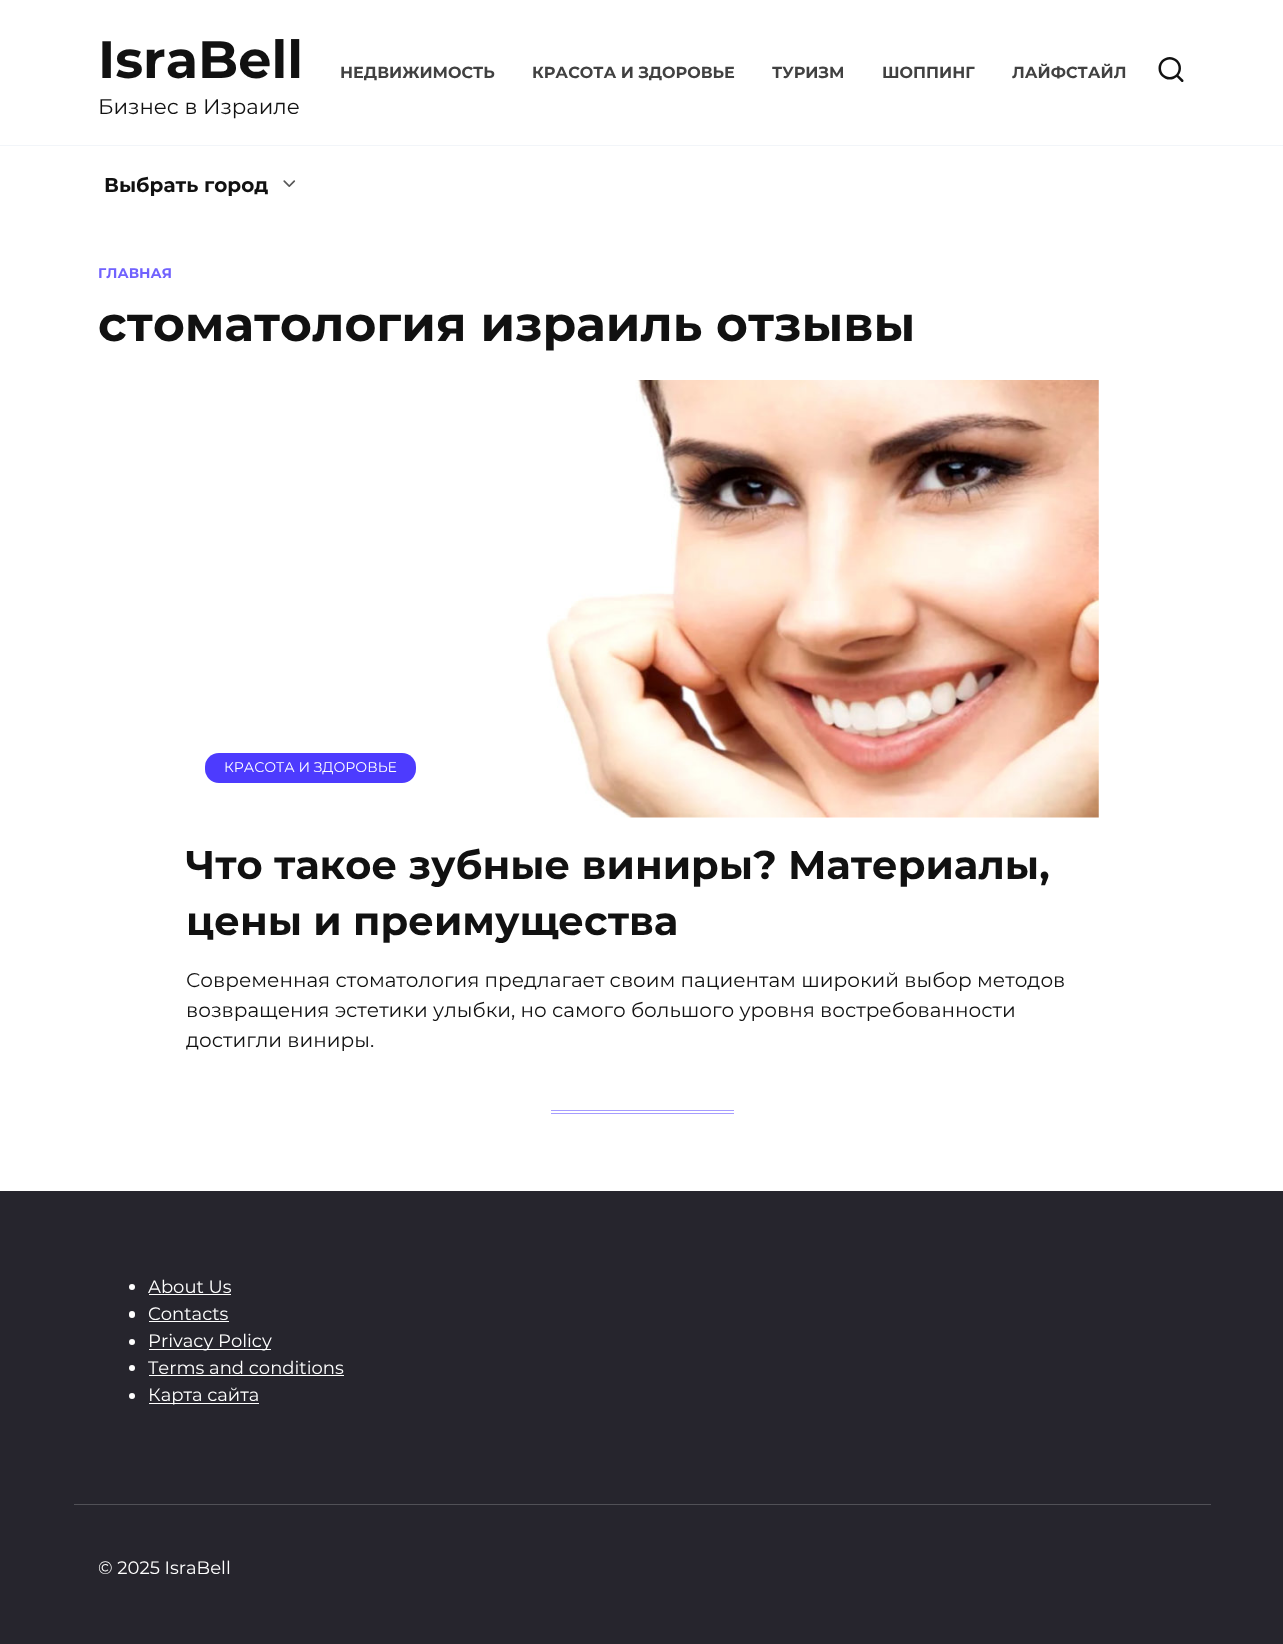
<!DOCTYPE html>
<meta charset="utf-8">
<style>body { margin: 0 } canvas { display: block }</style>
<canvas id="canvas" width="1283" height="1644"></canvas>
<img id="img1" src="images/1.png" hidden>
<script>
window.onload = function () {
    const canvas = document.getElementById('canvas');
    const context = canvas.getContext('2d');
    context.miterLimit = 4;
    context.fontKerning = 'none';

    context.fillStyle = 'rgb(255, 255, 255)';
    context.fillRect(0, 0, 1283, 1644);
    context.fillStyle = 'rgb(242, 245, 249)';
    context.fillRect(0, 145, 1283, 1);
    context.fillStyle = 'rgb(77, 59, 254)';
    context.beginPath();
    context.roundRect(205, 753, 211, 30, 14);
    context.fill();
    context.drawImage(document.getElementById('img1'), 546, 380, 553, 438);
    context.fillStyle = 'rgb(166, 157, 255)';
    context.fillRect(551, 1110, 183, 1);
    context.fillRect(551, 1113, 183, 1);
    context.fillStyle = 'rgb(38, 37, 45)';
    context.fillRect(0, 1191, 1283, 453);
    context.fillStyle = 'rgb(81, 81, 87)';
    context.fillRect(74, 1504, 1137, 1);
    context.fillStyle = 'rgb(255, 255, 255)';
    context.beginPath();
    context.arc(132, 1287, 3, 0, 2 * Math.PI);
    context.fill();
    context.fillRect(149, 1294, 82, 1);
    context.beginPath();
    context.roundRect(129, 1311, 6, 7, 3);
    context.fill();
    context.fillRect(149, 1321, 80, 1);
    context.beginPath();
    context.arc(132, 1342, 3, 0, 2 * Math.PI);
    context.fill();
    context.fillRect(149, 1349, 122, 1);
    context.beginPath();
    context.arc(132, 1368, 3, 0, 2 * Math.PI);
    context.fill();
    context.fillRect(149, 1375, 195, 1);
    context.beginPath();
    context.arc(132, 1396, 3, 0, 2 * Math.PI);
    context.fill();
    context.fillRect(149, 1403, 110, 1);
    context.font = 'bold 52.5px Montserrat';
    context.fillStyle = 'rgb(17, 17, 17)';
    context.fillText('IsraBell', 98, 78);
    context.font = '21.25px Montserrat';
    context.fillText('Бизнес в Израиле', 98, 114);
    context.font = 'bold 16px Montserrat';
    context.fillStyle = 'rgb(65, 65, 65)';
    context.fillText('НЕДВИЖИМОСТЬ', 340, 78);
    context.fillText('КРАСОТА И ЗДОРОВЬЕ', 532, 78);
    context.fillText('ТУРИЗМ', 772, 78);
    context.fillText('ШОППИНГ', 882, 78);
    context.fillText('ЛАЙФСТАЙЛ', 1012, 78);
    context.font = '30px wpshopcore';
    context.fillStyle = 'rgb(17, 17, 17)';
    context.fillText('🔍', 1156, 82);
    context.font = 'bold 20px Montserrat';
    context.fillText('Выбрать город', 104, 192);
    context.font = '20px wpshopcore';
    context.fillStyle = 'rgb(88, 88, 88)';
    context.fillText('﹀', 279, 192);
    context.font = 'bold 14px Montserrat';
    context.fillStyle = 'rgb(113, 98, 254)';
    context.fillText('ГЛАВНАЯ', 98, 278);
    context.font = 'bold 48.75px Montserrat';
    context.fillStyle = 'rgb(17, 17, 17)';
    context.fillText('стоматология израиль отзывы', 98, 341);
    context.font = '14px Montserrat';
    context.fillStyle = 'rgb(255, 255, 255)';
    context.fillText('КРАСОТА И ЗДОРОВЬЕ', 224, 772);
    context.font = 'bold 40px Montserrat';
    context.fillStyle = 'rgb(17, 17, 17)';
    context.fillText('Что такое зубные виниры? Материалы,', 186, 879);
    context.fillText('цены и преимущества', 186, 935);
    context.font = '20px Montserrat';
    context.fillText('Современная стоматология предлагает своим пациентам широкий выбор методов', 186, 987);
    context.fillText('возвращения эстетики улыбки, но самого большого уровня востребованности', 186, 1017);
    context.fillText('достигли виниры.', 186, 1047);
    context.font = '18px Montserrat';
    context.fillStyle = 'rgb(255, 255, 255)';
    context.fillText('About Us', 148, 1293);
    context.fillText('Contacts', 148, 1320);
    context.fillText('Privacy Policy', 148, 1347);
    context.fillText('Terms and conditions', 148, 1374);
    context.fillText('Карта сайта', 148, 1401);
    context.fillText('© 2025 IsraBell', 98, 1574);
};
</script>
